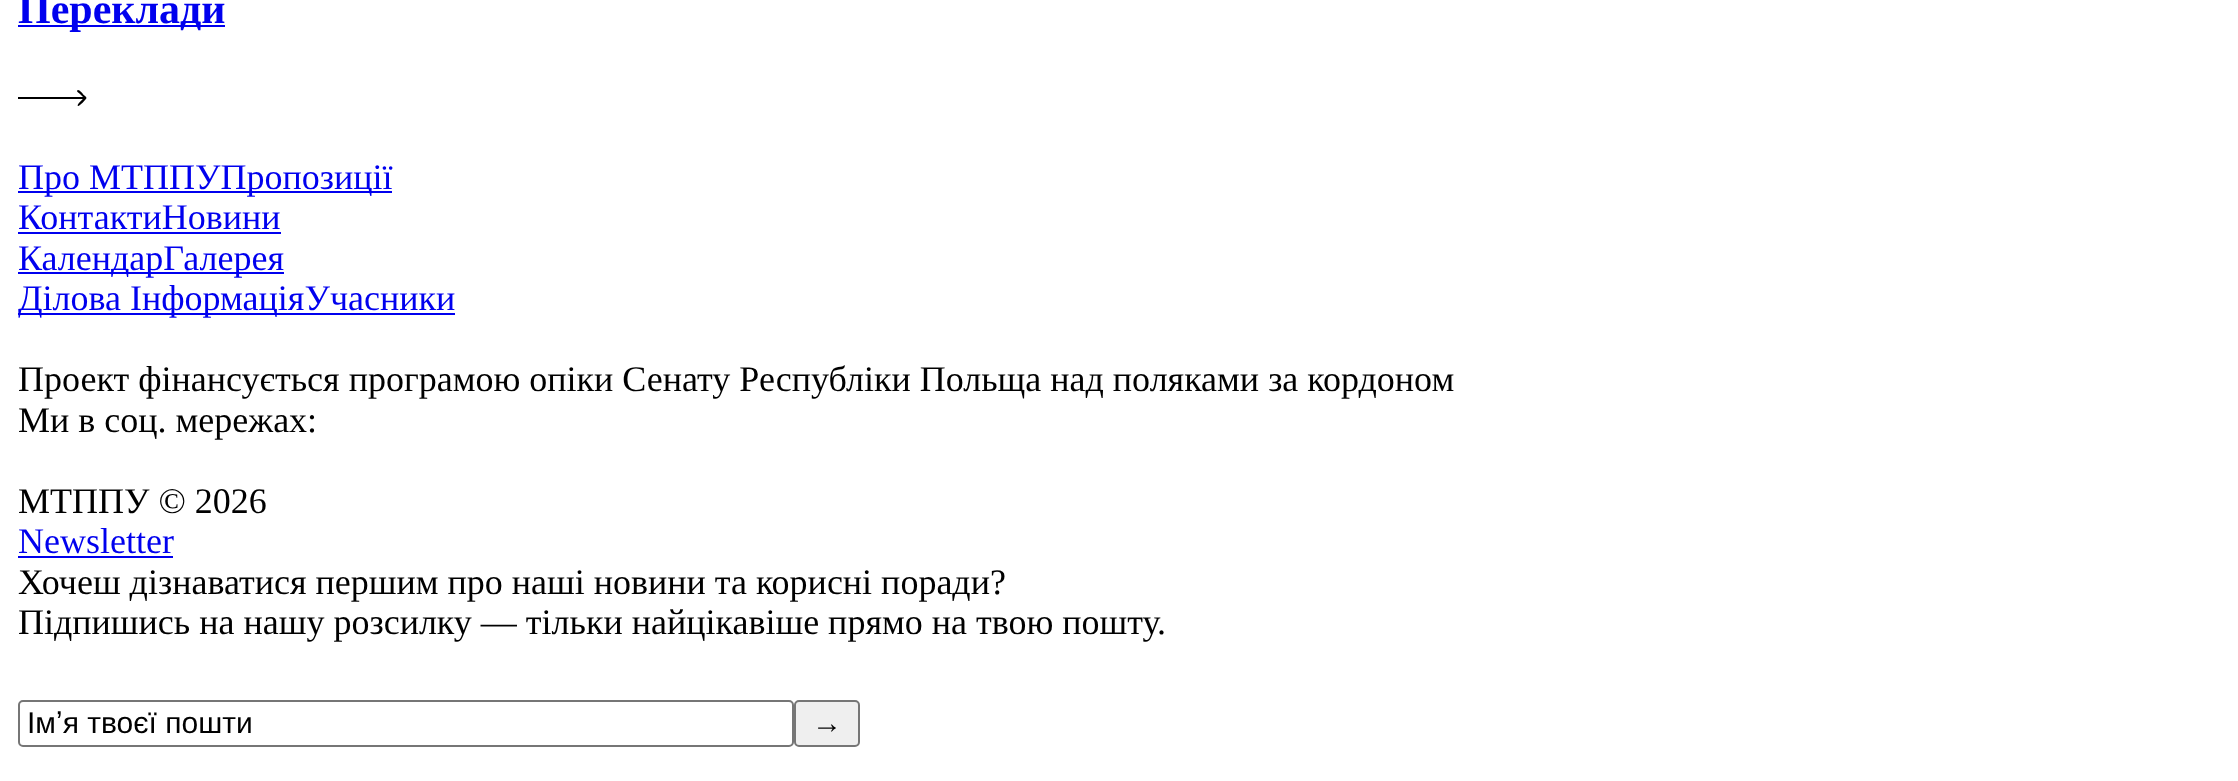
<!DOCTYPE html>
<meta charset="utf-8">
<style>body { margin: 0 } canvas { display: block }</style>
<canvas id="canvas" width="2238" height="781"></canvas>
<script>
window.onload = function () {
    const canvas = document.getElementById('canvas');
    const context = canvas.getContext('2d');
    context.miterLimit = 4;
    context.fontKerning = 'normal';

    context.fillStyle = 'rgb(255, 255, 255)';
    context.fillRect(0, 0, 2238, 781);
    context.fillStyle = 'rgb(0, 0, 238)';
    context.fillRect(18, 25, 207, 2);
    context.fillStyle = 'rgb(0, 0, 0)';
    context.beginPath();
    context.moveTo(86, 99);
    context.bezierCurveTo(88, 97, 83, 95, 83, 94);
    context.bezierCurveTo(82, 93, 78, 88, 77, 91);
    context.bezierCurveTo(77, 92, 79, 93, 80, 94);
    context.lineTo(84, 98);
    context.bezierCurveTo(83, 99, 76, 105, 78, 106);
    context.bezierCurveTo(79, 107, 85, 100, 86, 99);
    context.closePath();
    context.moveTo(18, 98);
    context.lineTo(18, 99);
    context.lineTo(86, 99);
    context.lineTo(86, 97);
    context.lineTo(18, 97);
    context.closePath();
    context.fill();
    context.fillStyle = 'rgb(0, 0, 238)';
    context.fillRect(18, 191, 374, 2);
    context.fillRect(18, 232, 263, 2);
    context.fillRect(18, 272, 266, 2);
    context.fillRect(18, 313, 437, 2);
    context.fillRect(18, 556, 155, 2);
    context.beginPath();
    context.roundRect(19, 701, 774, 45, 4);
    context.strokeStyle = 'rgb(118, 118, 118)';
    context.lineWidth = 2;
    context.stroke();
    context.fillStyle = 'rgb(239, 239, 239)';
    context.beginPath();
    context.roundRect(795, 701, 64, 45, 4);
    context.fill();
    context.stroke();
    context.font = 'bold 42px Liberation Serif';
    context.fillStyle = 'rgb(0, 0, 238)';
    context.fillText('Переклади', 18, 23);
    context.font = '36px Liberation Serif';
    context.fillText('Про МТППУПропозиції', 18, 189);
    context.fillText('КонтактиНовини', 18, 229);
    context.fillText('КалендарГалерея', 18, 270);
    context.fillText('Ділова ІнформаціяУчасники', 18, 310);
    context.fillStyle = 'rgb(0, 0, 0)';
    context.fillText('Проект фінансується програмою опіки Сенату Республіки Польща над поляками за кордоном', 18, 391);
    context.fillText('Ми в соц. мережах:', 18, 432);
    context.fillText('МТППУ © 2026', 18, 513);
    context.fillStyle = 'rgb(0, 0, 238)';
    context.fillText('Newsletter', 18, 553);
    context.fillStyle = 'rgb(0, 0, 0)';
    context.fillText('Хочеш дізнаватися першим про наші новини та корисні поради?', 18, 594);
    context.fillText('Підпишись на нашу розсилку — тільки найцікавіше прямо на твою пошту.', 18, 634);
    context.font = '30px Liberation Sans';
    context.fillText('Імʼя твоєї пошти', 27, 733);
    context.fillText('→', 812, 733);
};
</script>
